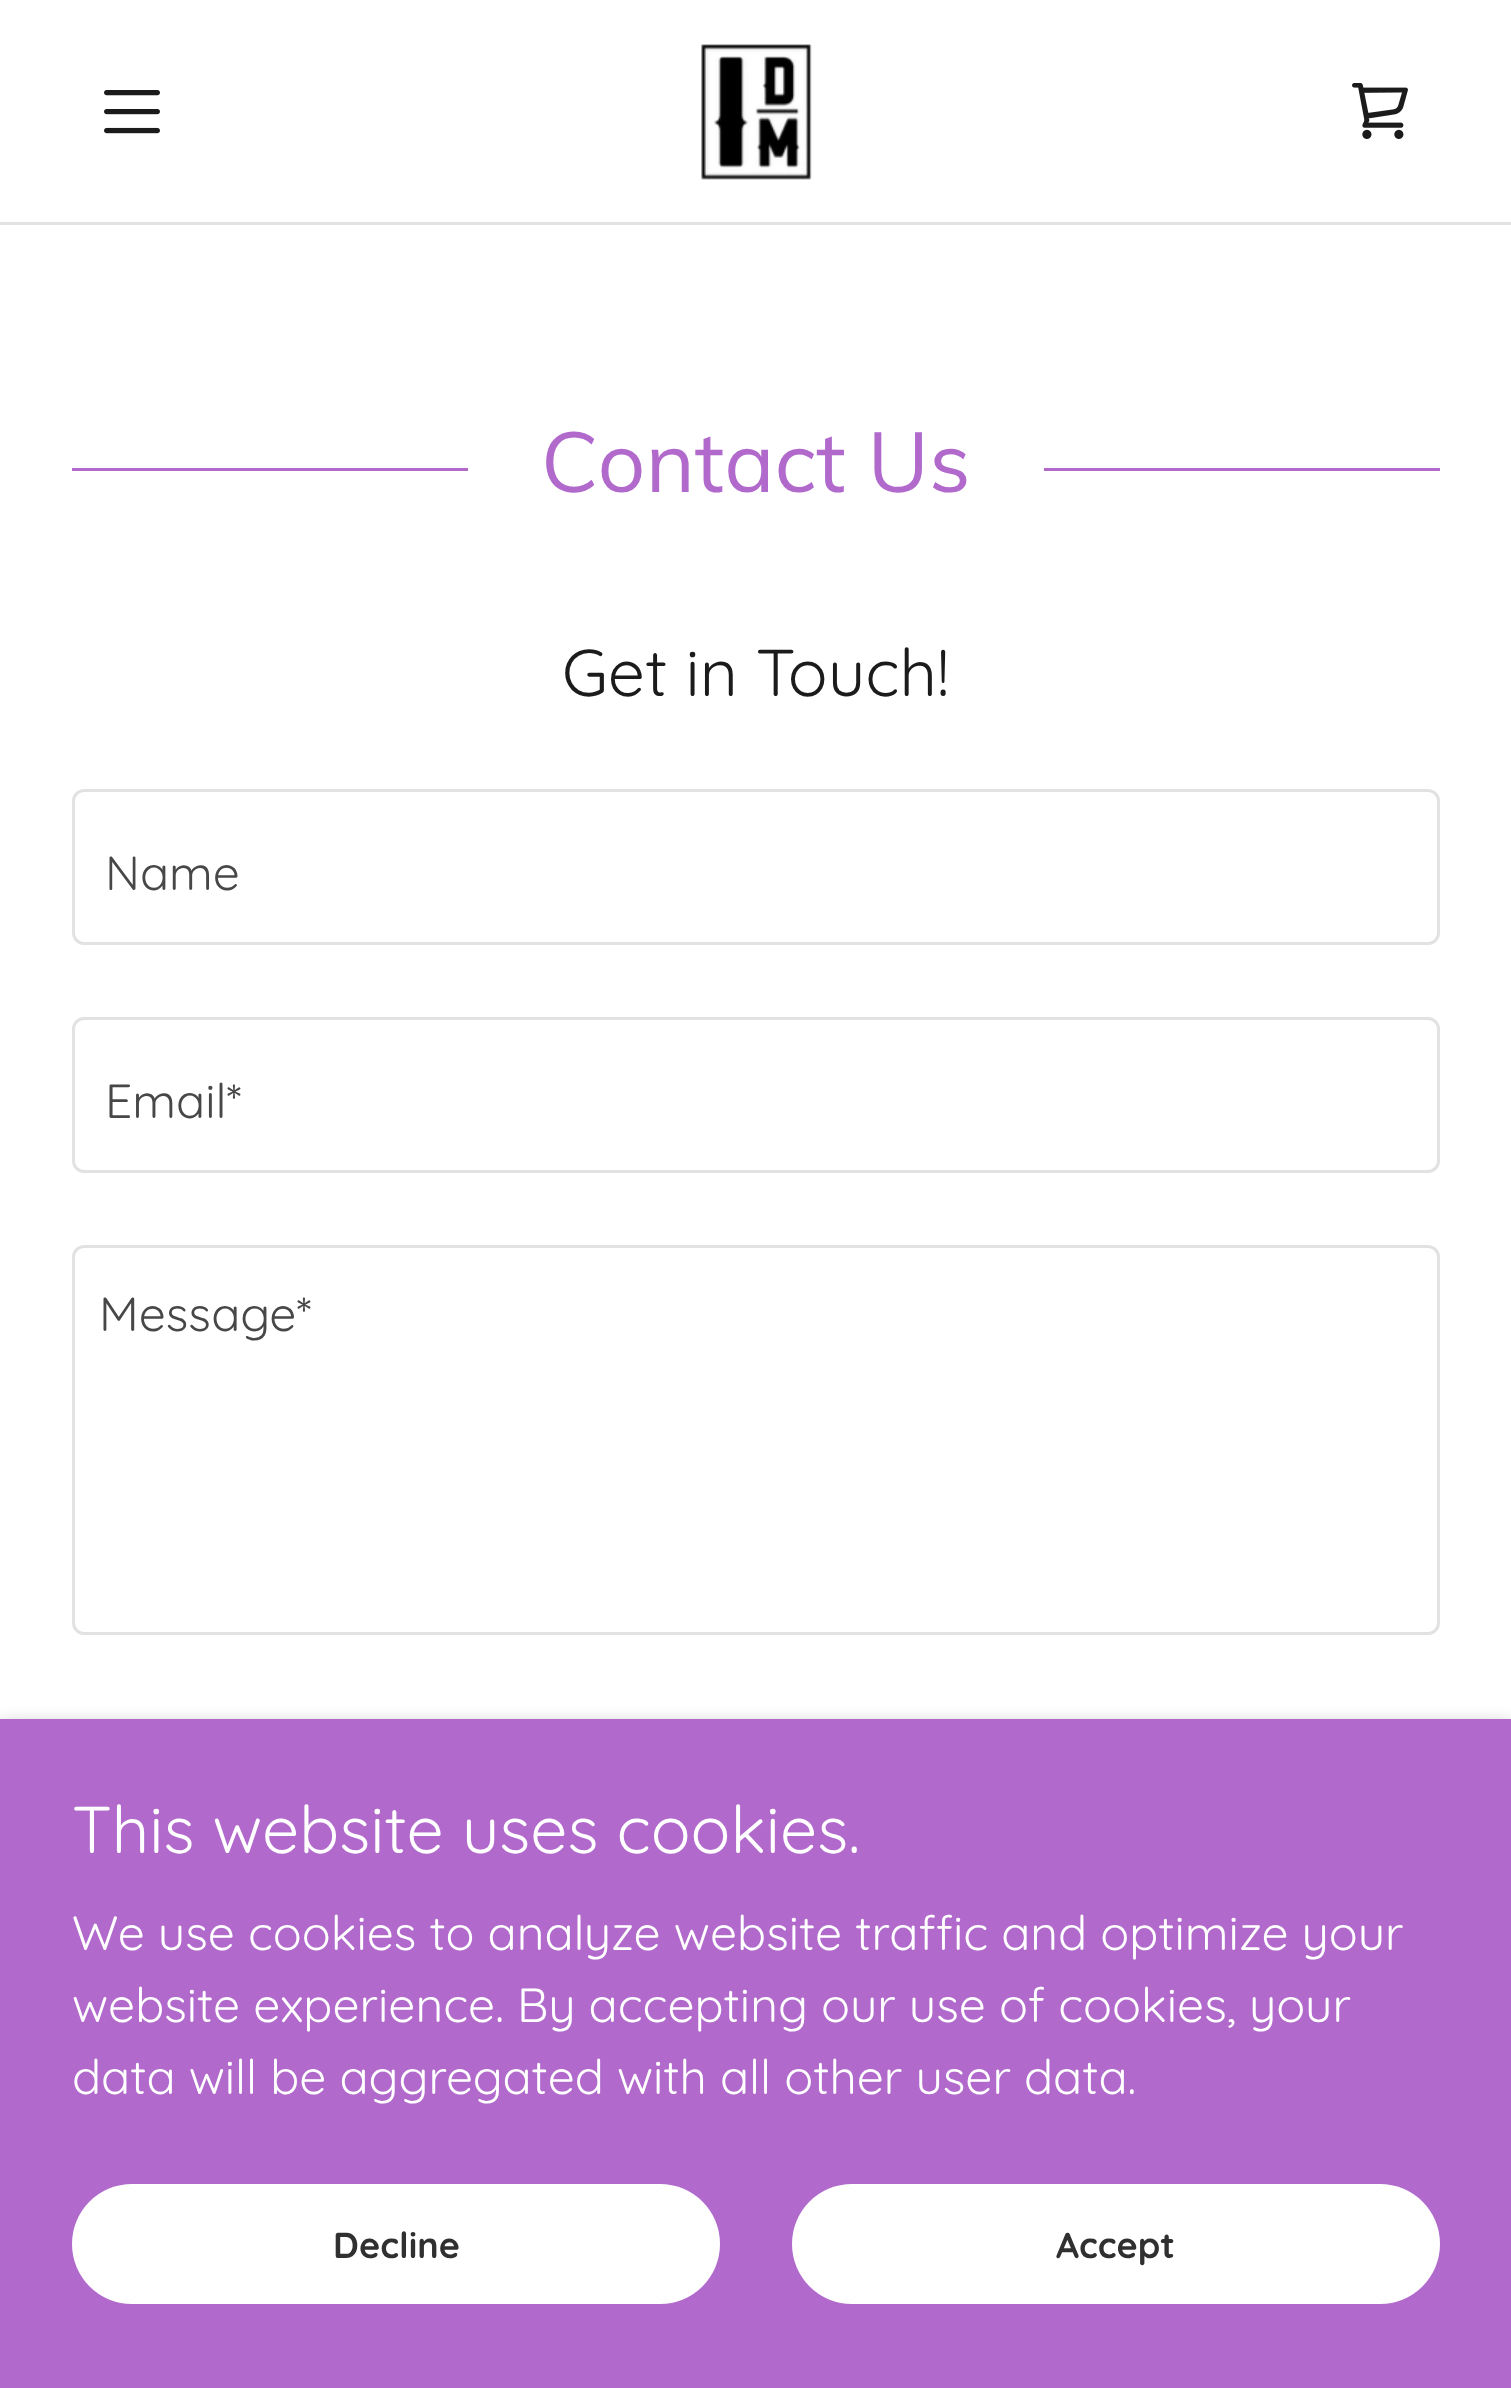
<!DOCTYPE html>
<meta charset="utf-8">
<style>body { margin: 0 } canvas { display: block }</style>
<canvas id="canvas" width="1511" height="2388"></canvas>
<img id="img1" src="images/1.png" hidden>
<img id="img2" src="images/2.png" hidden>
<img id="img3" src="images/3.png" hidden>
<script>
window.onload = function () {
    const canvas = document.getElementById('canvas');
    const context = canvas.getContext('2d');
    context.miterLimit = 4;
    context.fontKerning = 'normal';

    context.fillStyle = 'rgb(255, 255, 255)';
    context.fillRect(0, 0, 1511, 2388);
    context.drawImage(document.getElementById('img1'), 104, 90, 56, 44);
    context.drawImage(document.getElementById('img2'), 701, 44, 111, 136);
    context.drawImage(document.getElementById('img3'), 1352, 83, 56, 56);
    context.fillStyle = 'rgb(226, 226, 226)';
    context.fillRect(0, 222, 1511, 3);
    context.fillStyle = 'rgb(177, 106, 204)';
    context.fillRect(72, 468, 396, 3);
    context.fillRect(1044, 468, 396, 3);
    context.beginPath();
    context.roundRect(73.5, 790.5, 1365, 153, 10.5);
    context.strokeStyle = 'rgb(226, 226, 226)';
    context.lineWidth = 3;
    context.stroke();
    context.beginPath();
    context.roundRect(73.5, 1018.5, 1365, 153, 10.5);
    context.stroke();
    context.beginPath();
    context.roundRect(73.5, 1246.5, 1365, 387, 10.5);
    context.stroke();
    context.fillStyle = 'rgba(0, 0, 0, 0.3)';
    context.filter = 'blur(9px)';
    context.beginPath();
    context.rect(0, 1725, 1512, 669);
    context.fill();
    context.filter = 'none';
    context.fillStyle = 'rgb(177, 106, 204)';
    context.fillRect(0, 1719, 1511, 669);
    context.fillStyle = 'rgb(255, 255, 255)';
    context.beginPath();
    context.roundRect(72, 2184, 648, 120, 60);
    context.fill();
    context.beginPath();
    context.roundRect(792, 2184, 648, 120, 60);
    context.fill();
    context.font = '84px Muli';
    context.fillStyle = 'rgb(177, 106, 204)';
    context.fillText('Contact Us', 541, 492);
    context.font = '66px Quicksand';
    context.fillStyle = 'rgb(27, 27, 27)';
    context.fillText('Get in Touch!', 562, 696);
    context.font = '48px Quicksand';
    context.fillStyle = 'rgb(71, 71, 71)';
    context.fillText('Name', 105, 890);
    context.fillText('Email*', 105, 1118);
    context.fillText('Message*', 99, 1331);
    context.font = '66px Quicksand';
    context.fillStyle = 'rgb(255, 255, 255)';
    context.fillText('This website uses cookies.', 72, 1853);
    context.font = '48px Quicksand';
    context.fillText('We use cookies to analyze website traffic and optimize your', 72, 1950);
    context.fillText('website experience. By accepting our use of cookies, your', 72, 2022);
    context.fillText('data will be aggregated with all other user data.', 72, 2094);
    context.font = 'bold 36px Quicksand';
    context.fillStyle = 'rgb(48, 48, 48)';
    context.fillText('Decline', 333, 2258);
    context.fillText('Accept', 1056, 2258);
};
</script>
